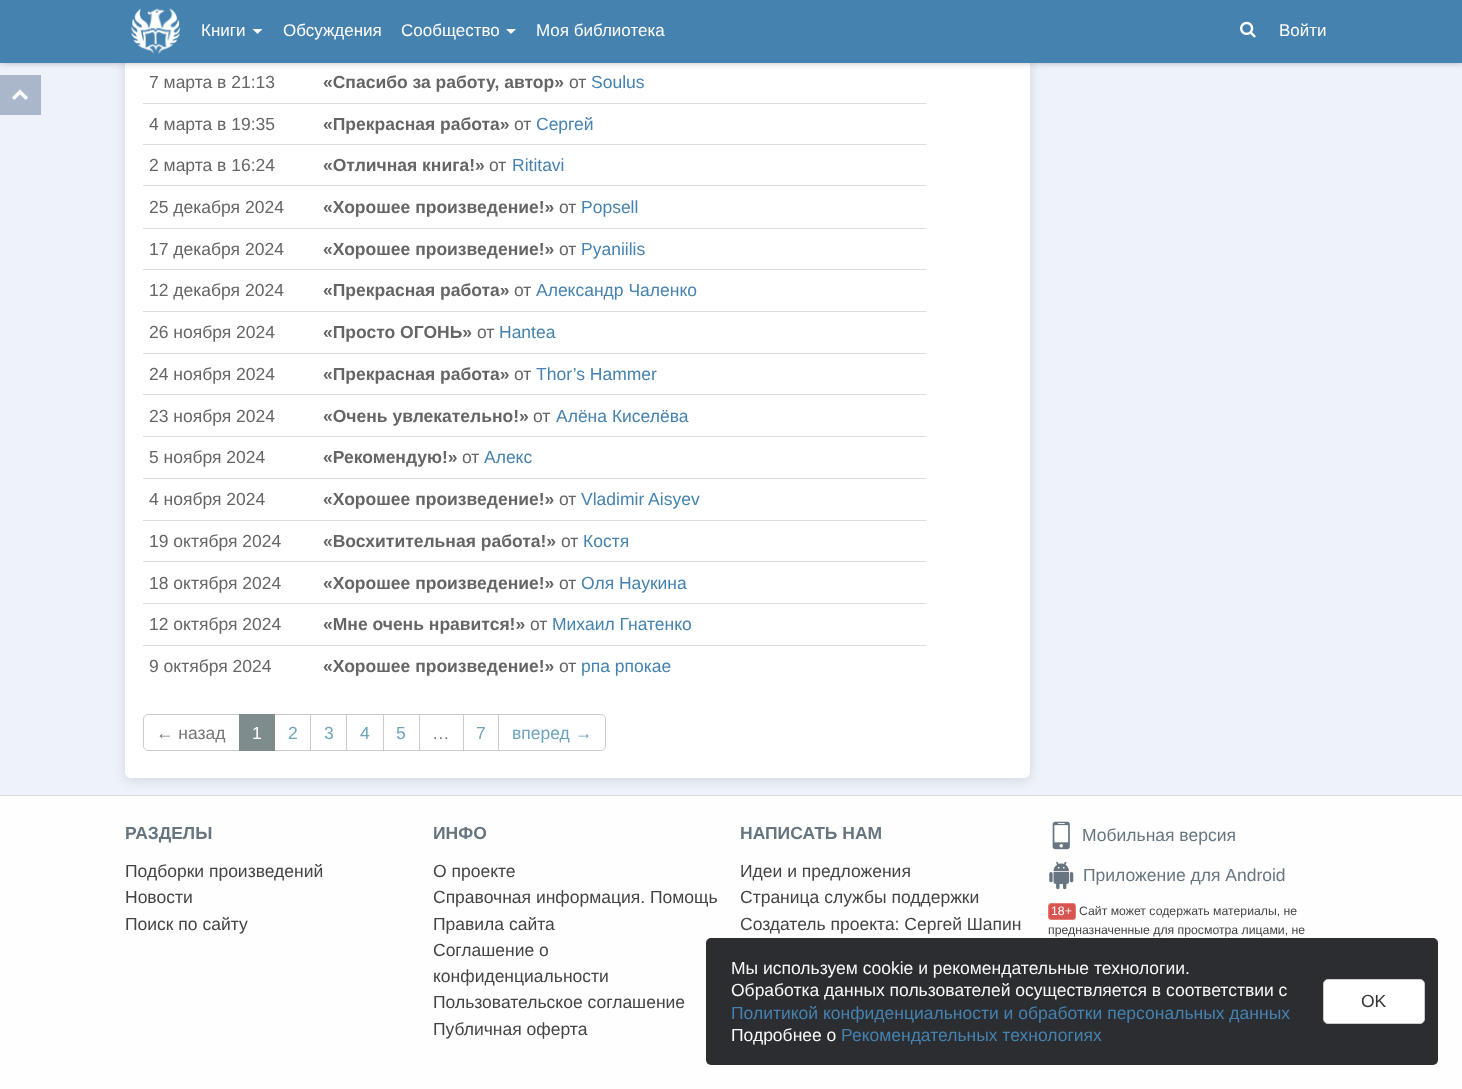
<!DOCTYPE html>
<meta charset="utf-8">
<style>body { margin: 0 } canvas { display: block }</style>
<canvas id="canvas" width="1462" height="1089"></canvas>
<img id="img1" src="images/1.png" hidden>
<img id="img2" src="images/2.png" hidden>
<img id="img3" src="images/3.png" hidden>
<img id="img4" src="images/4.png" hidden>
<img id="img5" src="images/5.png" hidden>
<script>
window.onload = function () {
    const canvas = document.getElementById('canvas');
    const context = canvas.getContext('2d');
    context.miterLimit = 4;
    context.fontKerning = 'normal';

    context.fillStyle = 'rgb(238, 243, 251)';
    context.fillRect(0, 0, 1462, 1089);
    context.fillStyle = 'rgba(0, 0, 0, 0.12)';
    context.filter = 'blur(6px)';
    context.beginPath();
    context.roundRect(125, -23, 905, 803, 5);
    context.fill();
    context.filter = 'none';
    context.filter = 'blur(0.5px)';
    context.beginPath();
    context.roundRect(125, -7, 905, 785, 5);
    context.fill();
    context.filter = 'none';
    context.fillStyle = 'rgb(255, 255, 255)';
    context.beginPath();
    context.roundRect(125, -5, 905, 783, 5);
    context.fill();
    context.fillStyle = 'rgba(0, 0, 0, 0.25)';
    context.filter = 'blur(3px)';
    context.beginPath();
    context.rect(0, 0, 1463, 63);
    context.fill();
    context.filter = 'none';
    context.fillStyle = 'rgb(69, 130, 175)';
    context.fillRect(0, 0, 1462, 63);
    context.drawImage(document.getElementById('img1'), 131, 8, 49, 46);
    context.fillStyle = 'rgb(255, 255, 255)';
    context.beginPath();
    context.moveTo(252.5, 29);
    context.lineTo(262.5, 29);
    context.lineTo(257.5, 34);
    context.closePath();
    context.fill();
    context.beginPath();
    context.moveTo(506, 29);
    context.lineTo(516, 29);
    context.lineTo(511, 34);
    context.closePath();
    context.fill();
    context.drawImage(document.getElementById('img2'), 1240, 21, 16, 17);
    context.fillStyle = 'rgb(170, 183, 203)';
    context.fillRect(0, 75, 41, 40);
    context.drawImage(document.getElementById('img3'), 12, 89, 16, 11);
    context.fillStyle = 'rgb(221, 221, 221)';
    context.fillRect(143, 103, 783, 1);
    context.fillRect(143, 144, 783, 1);
    context.fillRect(143, 185, 783, 1);
    context.fillRect(143, 228, 783, 1);
    context.fillRect(143, 269, 783, 1);
    context.fillRect(143, 311, 783, 1);
    context.fillRect(143, 353, 783, 1);
    context.fillRect(143, 394, 783, 1);
    context.fillRect(143, 436, 783, 1);
    context.fillRect(143, 478, 783, 1);
    context.fillRect(143, 520, 783, 1);
    context.fillRect(143, 561, 783, 1);
    context.fillRect(143, 603, 783, 1);
    context.fillRect(143, 645, 783, 1);
    context.beginPath();
    context.roundRect(143.5, 714.5, 96, 36, [4.5, 0, 0, 4.5]);
    context.strokeStyle = 'rgb(204, 204, 204)';
    context.stroke();
    context.strokeRect(274.5, 714.5, 36, 36);
    context.fillStyle = 'rgb(127, 140, 141)';
    context.fillRect(239, 714, 36, 37);
    context.strokeRect(310.5, 714.5, 37, 36);
    context.fillStyle = 'rgb(255, 255, 255)';
    context.fillRect(347, 715, 1, 35);
    context.strokeRect(346.5, 714.5, 37, 36);
    context.strokeRect(383.5, 714.5, 36, 36);
    context.strokeRect(419.5, 714.5, 44, 36);
    context.strokeRect(463.5, 714.5, 35, 36);
    context.beginPath();
    context.roundRect(498.5, 714.5, 107, 36, [0, 4.5, 4.5, 0]);
    context.fill();
    context.stroke();
    context.fillStyle = 'rgb(254, 254, 254)';
    context.fillRect(0, 796, 1462, 293);
    context.fillStyle = 'rgb(216, 216, 216)';
    context.fillRect(0, 795, 1462, 1);
    context.drawImage(document.getElementById('img4'), 1052, 821, 18, 29);
    context.drawImage(document.getElementById('img5'), 1049, 861, 25, 29);
    context.fillStyle = 'rgb(217, 83, 79)';
    context.beginPath();
    context.roundRect(1048.5, 903.5, 27, 16, 2.5);
    context.fill();
    context.strokeStyle = 'rgb(226, 124, 121)';
    context.stroke();
    context.fillStyle = 'rgb(43, 45, 49)';
    context.beginPath();
    context.roundRect(706, 938, 732, 127, 5);
    context.fill();
    context.fillStyle = 'rgb(255, 255, 255)';
    context.beginPath();
    context.roundRect(1323.5, 979.5, 101, 44, 4.5);
    context.fill();
    context.strokeStyle = 'rgb(204, 204, 204)';
    context.stroke();
    context.font = '17px Liberation Sans';
    context.fillText('Книги', 201, 36);
    context.fillText('Обсуждения', 283, 36);
    context.fillText('Сообщество', 401, 36);
    context.fillText('Моя библиотека', 536, 36);
    context.fillText('Войти', 1279, 36);
    context.font = '17.5px Liberation Sans';
    context.fillStyle = 'rgb(101, 101, 101)';
    context.fillText('7 марта в 21:13', 149, 88);
    context.font = 'bold 17.5px Liberation Sans';
    context.fillText('«Спасибо за работу, автор»', 323, 88);
    context.font = '17.5px Liberation Sans';
    context.fillText('от', 569, 88);
    context.fillStyle = 'rgb(69, 130, 175)';
    context.fillText('Soulus', 591, 88);
    context.fillStyle = 'rgb(101, 101, 101)';
    context.fillText('4 марта в 19:35', 149, 130);
    context.font = 'bold 17.5px Liberation Sans';
    context.fillText('«Прекрасная работа»', 323, 130);
    context.font = '17.5px Liberation Sans';
    context.fillText('от', 514, 130);
    context.fillStyle = 'rgb(69, 130, 175)';
    context.fillText('Сергей', 536, 130);
    context.fillStyle = 'rgb(101, 101, 101)';
    context.fillText('2 марта в 16:24', 149, 171);
    context.font = 'bold 17.5px Liberation Sans';
    context.fillText('«Отличная книга!»', 323, 171);
    context.font = '17.5px Liberation Sans';
    context.fillText('от', 489, 171);
    context.fillStyle = 'rgb(69, 130, 175)';
    context.fillText('Rititavi', 512, 171);
    context.fillStyle = 'rgb(101, 101, 101)';
    context.fillText('25 декабря 2024', 149, 213);
    context.font = 'bold 17.5px Liberation Sans';
    context.fillText('«Хорошее произведение!»', 323, 213);
    context.font = '17.5px Liberation Sans';
    context.fillText('от', 559, 213);
    context.fillStyle = 'rgb(69, 130, 175)';
    context.fillText('Popsell', 581, 213);
    context.fillStyle = 'rgb(101, 101, 101)';
    context.fillText('17 декабря 2024', 149, 255);
    context.font = 'bold 17.5px Liberation Sans';
    context.fillText('«Хорошее произведение!»', 323, 255);
    context.font = '17.5px Liberation Sans';
    context.fillText('от', 559, 255);
    context.fillStyle = 'rgb(69, 130, 175)';
    context.fillText('Pyaniilis', 581, 255);
    context.fillStyle = 'rgb(101, 101, 101)';
    context.fillText('12 декабря 2024', 149, 296);
    context.font = 'bold 17.5px Liberation Sans';
    context.fillText('«Прекрасная работа»', 323, 296);
    context.font = '17.5px Liberation Sans';
    context.fillText('от', 514, 296);
    context.fillStyle = 'rgb(69, 130, 175)';
    context.fillText('Александр Чаленко', 536, 296);
    context.fillStyle = 'rgb(101, 101, 101)';
    context.fillText('26 ноября 2024', 149, 338);
    context.font = 'bold 17.5px Liberation Sans';
    context.fillText('«Просто ОГОНЬ»', 323, 338);
    context.font = '17.5px Liberation Sans';
    context.fillText('от', 477, 338);
    context.fillStyle = 'rgb(69, 130, 175)';
    context.fillText('Hantea', 499, 338);
    context.fillStyle = 'rgb(101, 101, 101)';
    context.fillText('24 ноября 2024', 149, 380);
    context.font = 'bold 17.5px Liberation Sans';
    context.fillText('«Прекрасная работа»', 323, 380);
    context.font = '17.5px Liberation Sans';
    context.fillText('от', 514, 380);
    context.fillStyle = 'rgb(69, 130, 175)';
    context.fillText('Thor’s Hammer', 536, 380);
    context.fillStyle = 'rgb(101, 101, 101)';
    context.fillText('23 ноября 2024', 149, 422);
    context.font = 'bold 17.5px Liberation Sans';
    context.fillText('«Очень увлекательно!»', 323, 422);
    context.font = '17.5px Liberation Sans';
    context.fillText('от', 533, 422);
    context.fillStyle = 'rgb(69, 130, 175)';
    context.fillText('Алёна Киселёва', 556, 422);
    context.fillStyle = 'rgb(101, 101, 101)';
    context.fillText('5 ноября 2024', 149, 463);
    context.font = 'bold 17.5px Liberation Sans';
    context.fillText('«Рекомендую!»', 323, 463);
    context.font = '17.5px Liberation Sans';
    context.fillText('от', 462, 463);
    context.fillStyle = 'rgb(69, 130, 175)';
    context.fillText('Алекс', 484, 463);
    context.fillStyle = 'rgb(101, 101, 101)';
    context.fillText('4 ноября 2024', 149, 505);
    context.font = 'bold 17.5px Liberation Sans';
    context.fillText('«Хорошее произведение!»', 323, 505);
    context.font = '17.5px Liberation Sans';
    context.fillText('от', 559, 505);
    context.fillStyle = 'rgb(69, 130, 175)';
    context.fillText('Vladimir Aisyev', 581, 505);
    context.fillStyle = 'rgb(101, 101, 101)';
    context.fillText('19 октября 2024', 149, 547);
    context.font = 'bold 17.5px Liberation Sans';
    context.fillText('«Восхитительная работа!»', 323, 547);
    context.font = '17.5px Liberation Sans';
    context.fillText('от', 561, 547);
    context.fillStyle = 'rgb(69, 130, 175)';
    context.fillText('Костя', 583, 547);
    context.fillStyle = 'rgb(101, 101, 101)';
    context.fillText('18 октября 2024', 149, 589);
    context.font = 'bold 17.5px Liberation Sans';
    context.fillText('«Хорошее произведение!»', 323, 589);
    context.font = '17.5px Liberation Sans';
    context.fillText('от', 559, 589);
    context.fillStyle = 'rgb(69, 130, 175)';
    context.fillText('Оля Наукина', 581, 589);
    context.fillStyle = 'rgb(101, 101, 101)';
    context.fillText('12 октября 2024', 149, 630);
    context.font = 'bold 17.5px Liberation Sans';
    context.fillText('«Мне очень нравится!»', 323, 630);
    context.font = '17.5px Liberation Sans';
    context.fillText('от', 530, 630);
    context.fillStyle = 'rgb(69, 130, 175)';
    context.fillText('Михаил Гнатенко', 552, 630);
    context.fillStyle = 'rgb(101, 101, 101)';
    context.fillText('9 октября 2024', 149, 672);
    context.font = 'bold 17.5px Liberation Sans';
    context.fillText('«Хорошее произведение!»', 323, 672);
    context.font = '17.5px Liberation Sans';
    context.fillText('от', 559, 672);
    context.fillStyle = 'rgb(69, 130, 175)';
    context.fillText('рпа рпокае', 581, 672);
    context.fillStyle = 'rgb(119, 119, 119)';
    context.fillText('← назад', 156, 739);
    context.fillStyle = 'rgb(255, 255, 255)';
    context.fillText('1', 252, 739);
    context.fillStyle = 'rgb(109, 163, 189)';
    context.fillText('2', 288, 739);
    context.fillText('3', 324, 739);
    context.fillText('4', 360, 739);
    context.fillText('5', 396, 739);
    context.fillStyle = 'rgb(119, 119, 119)';
    context.fillText('…', 432, 739);
    context.fillStyle = 'rgb(109, 163, 189)';
    context.fillText('7', 476, 739);
    context.fillText('вперед →', 512, 739);
    context.font = 'bold 17.5px Liberation Sans';
    context.fillStyle = 'rgb(102, 117, 127)';
    context.fillText('РАЗДЕЛЫ', 125, 839);
    context.font = '17.5px Liberation Sans';
    context.fillStyle = 'rgb(68, 68, 68)';
    context.fillText('Подборки произведений', 125, 877);
    context.fillText('Новости', 125, 903);
    context.fillText('Поиск по сайту', 125, 930);
    context.font = 'bold 17.5px Liberation Sans';
    context.fillStyle = 'rgb(102, 117, 127)';
    context.fillText('ИНФО', 433, 839);
    context.font = '17.5px Liberation Sans';
    context.fillStyle = 'rgb(68, 68, 68)';
    context.fillText('О проекте', 433, 877);
    context.fillText('Справочная информация. Помощь', 433, 903);
    context.fillText('Правила сайта', 433, 930);
    context.fillText('Соглашение о', 433, 956);
    context.fillText('конфиденциальности', 433, 982);
    context.fillText('Пользовательское соглашение', 433, 1008);
    context.fillText('Публичная оферта', 433, 1035);
    context.font = 'bold 17.5px Liberation Sans';
    context.fillStyle = 'rgb(102, 117, 127)';
    context.fillText('НАПИСАТЬ НАМ', 740, 839);
    context.font = '17.5px Liberation Sans';
    context.fillStyle = 'rgb(68, 68, 68)';
    context.fillText('Идеи и предложения', 740, 877);
    context.fillText('Страница службы поддержки', 740, 903);
    context.fillText('Создатель проекта: Сергей Шапин', 740, 930);
    context.fillStyle = 'rgb(102, 117, 127)';
    context.fillText('Мобильная версия', 1082, 841);
    context.fillText('Приложение для Android', 1083, 881);
    context.font = '12.25px Liberation Sans';
    context.fillStyle = 'rgb(255, 255, 255)';
    context.fillText('18+', 1051, 915);
    context.fillStyle = 'rgb(68, 68, 68)';
    context.fillText('Сайт может содержать материалы, не', 1079, 915);
    context.fillText('предназначенные для просмотра лицами, не', 1048, 934);
    context.font = '17.5px Liberation Sans';
    context.fillStyle = 'rgb(249, 249, 249)';
    context.fillText('Мы используем cookie и рекомендательные технологии.', 731, 974);
    context.fillText('Обработка данных пользователей осуществляется в соответствии с', 731, 996);
    context.fillStyle = 'rgb(69, 130, 175)';
    context.fillText('Политикой конфиденциальности и обработки персональных данных', 731, 1019);
    context.fillStyle = 'rgb(249, 249, 249)';
    context.fillText('Подробнее о', 731, 1041);
    context.fillStyle = 'rgb(69, 130, 175)';
    context.fillText('Рекомендательных технологиях', 841, 1041);
    context.fillStyle = 'rgb(51, 51, 51)';
    context.fillText('OK', 1361, 1007);
};
</script>
